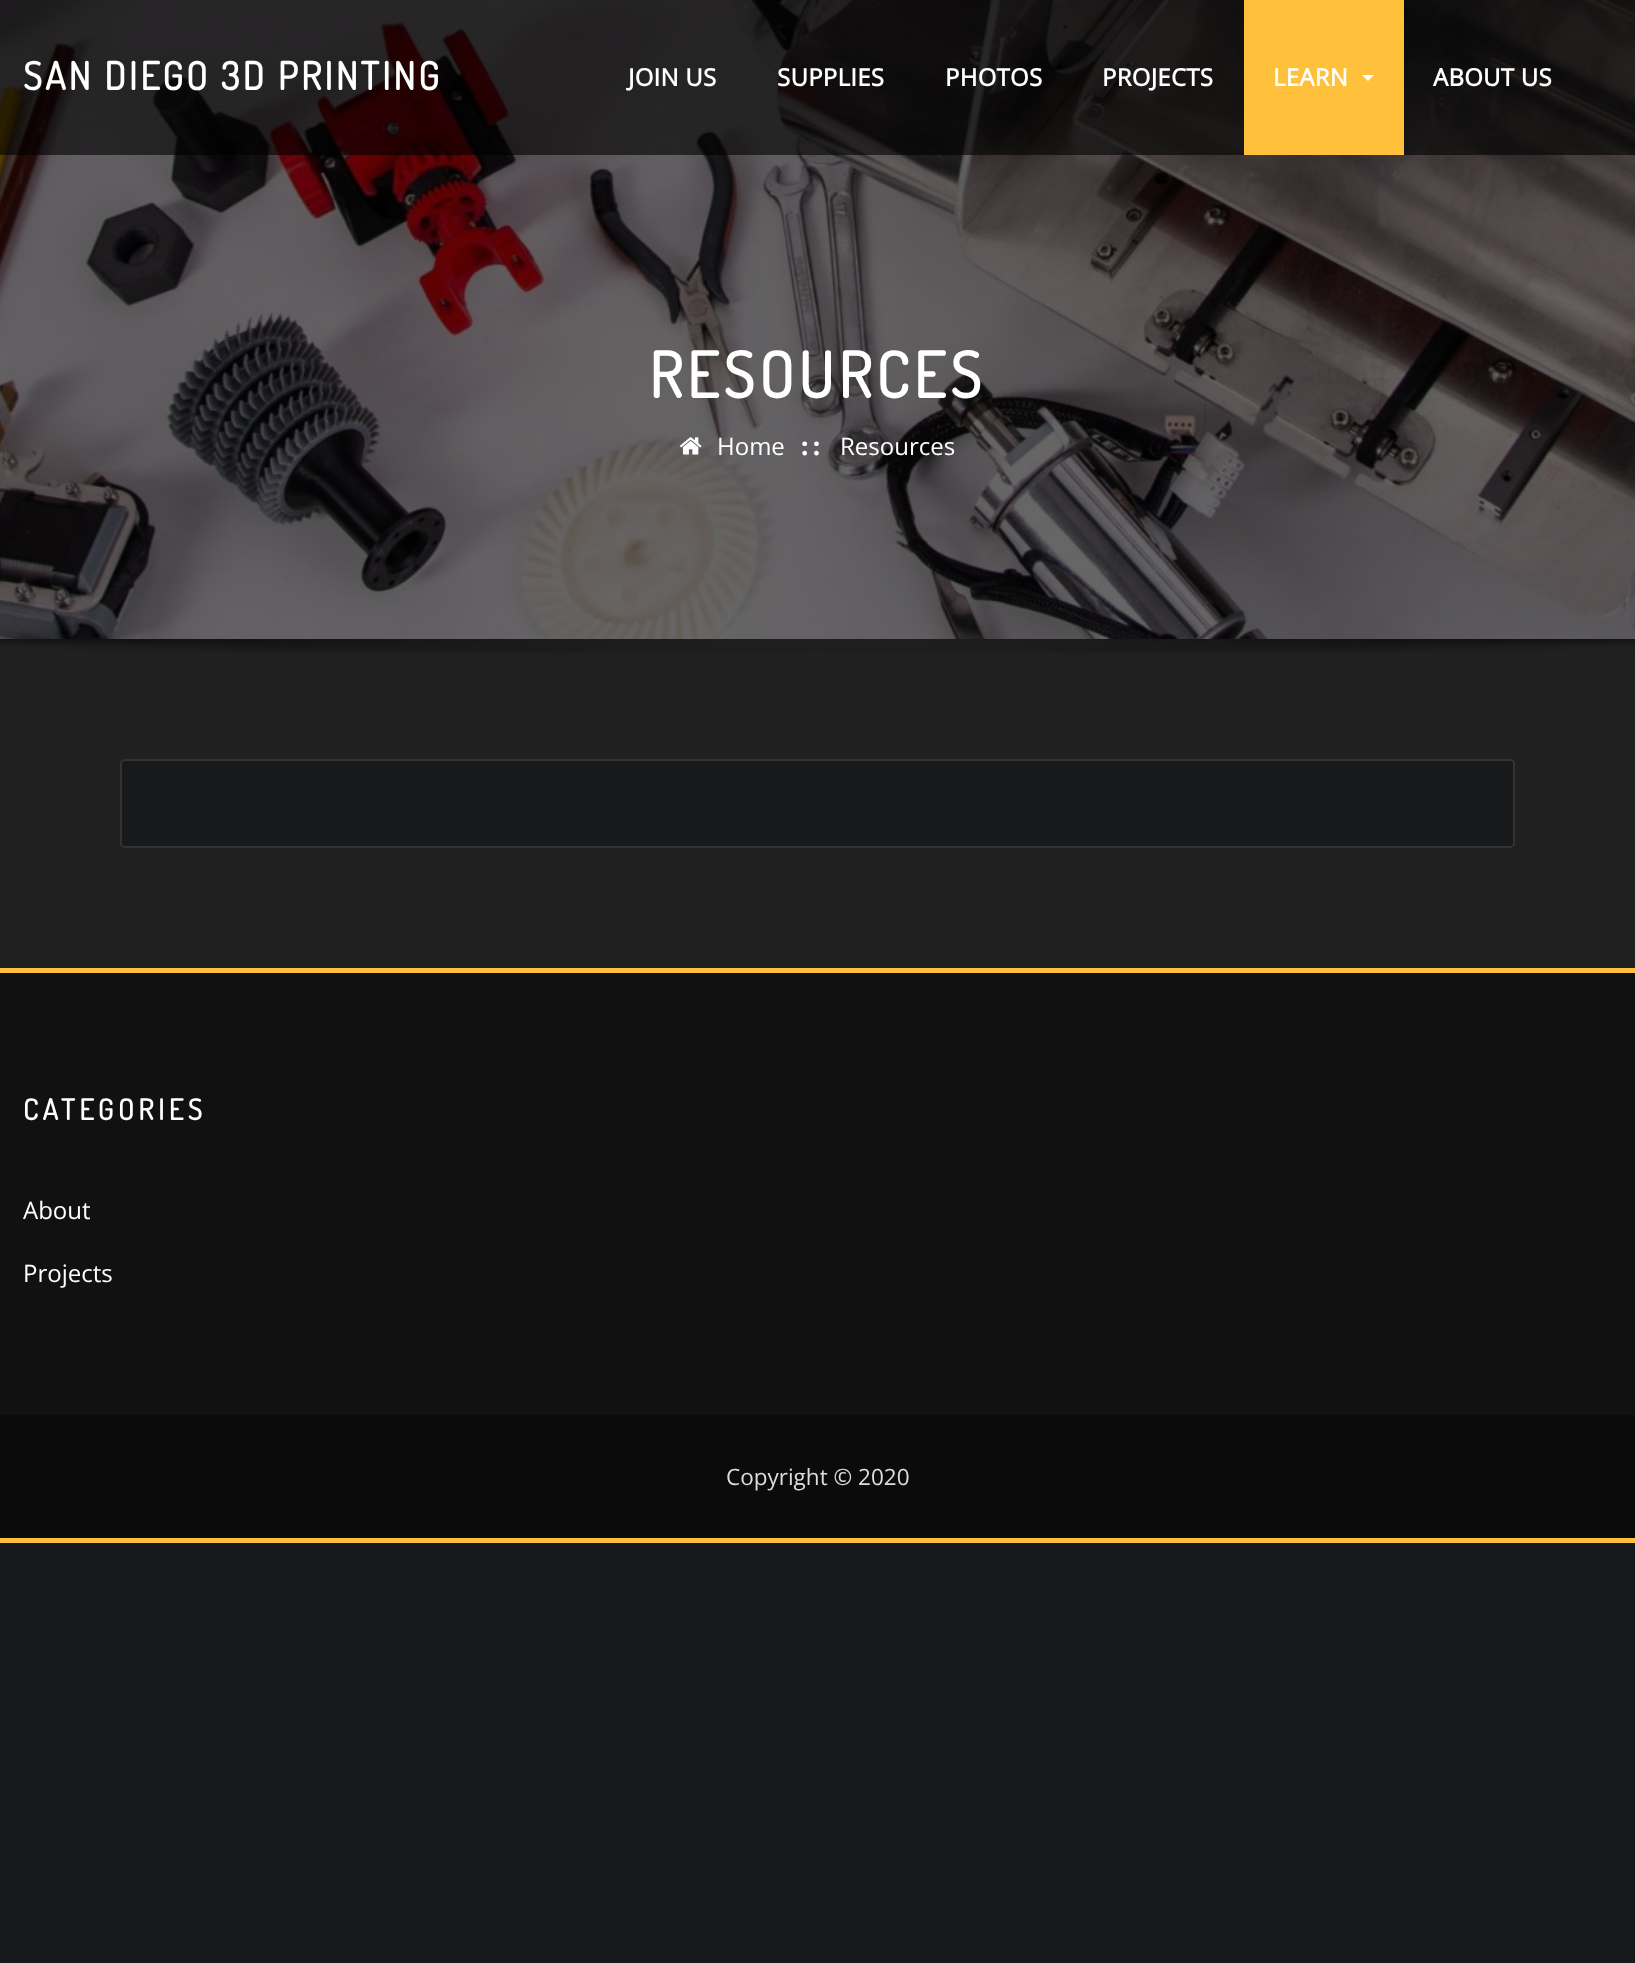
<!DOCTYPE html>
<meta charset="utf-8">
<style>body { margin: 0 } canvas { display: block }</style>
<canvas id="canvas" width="1635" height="1963"></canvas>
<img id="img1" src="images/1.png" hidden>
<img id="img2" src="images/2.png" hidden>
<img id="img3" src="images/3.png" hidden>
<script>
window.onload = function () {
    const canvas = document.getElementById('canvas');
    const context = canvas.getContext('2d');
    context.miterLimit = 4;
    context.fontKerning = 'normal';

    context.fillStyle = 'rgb(24, 25, 27)';
    context.fillRect(0, 0, 1635, 1963);
    context.drawImage(document.getElementById('img1'), 0, 0, 1635, 639);
    context.fillStyle = 'rgba(0, 0, 0, 0.6)';
    context.fillRect(0, 0, 1635, 155);
    context.fillStyle = 'rgb(255, 193, 59)';
    context.fillRect(1244, 0, 160, 155);
    context.fillStyle = 'rgb(255, 255, 255)';
    context.beginPath();
    context.moveTo(1362, 75);
    context.lineTo(1374, 75);
    context.lineTo(1368, 81);
    context.closePath();
    context.fill();
    context.drawImage(document.getElementById('img2'), 679, 437, 23, 18);
    context.fillStyle = 'rgb(32, 32, 32)';
    context.fillRect(0, 639, 1635, 329);
    context.drawImage(document.getElementById('img3'), 0, 639, 1635, 14);
    context.fillStyle = 'rgb(24, 25, 27)';
    context.beginPath();
    context.roundRect(121, 760, 1393, 87, 4);
    context.fill();
    context.strokeStyle = 'rgb(51, 51, 51)';
    context.lineWidth = 2;
    context.stroke();
    context.fillStyle = 'rgb(17, 17, 17)';
    context.fillRect(0, 973, 1635, 442);
    context.fillStyle = 'rgb(255, 193, 59)';
    context.fillRect(0, 968, 1635, 5);
    context.fillRect(0, 1538, 1635, 5);
    context.fillStyle = 'rgb(11, 11, 11)';
    context.fillRect(0, 1415, 1635, 123);
    context.letterSpacing = '3px';
    context.font = 'bold 38.4px Dosis';
    context.fillStyle = 'rgb(255, 255, 255)';
    context.fillText('SAN DIEGO 3D PRINTING', 23, 90);
    context.letterSpacing = '0.25px';
    context.font = 'bold 24px Open Sans';
    context.fillText('JOIN US', 628, 86);
    context.fillText('SUPPLIES', 777, 86);
    context.fillText('PHOTOS', 945, 86);
    context.fillText('PROJECTS', 1102, 86);
    context.fillText('LEARN', 1273, 86);
    context.fillText('ABOUT US', 1433, 86);
    context.letterSpacing = '4.5px';
    context.font = 'bold 63px Dosis';
    context.fillText('RESOURCES', 649, 398);
    context.letterSpacing = '0px';
    context.font = '24px Open Sans';
    context.fillText('Home', 717, 455);
    context.letterSpacing = '2px';
    context.font = 'bold 29px Liberation Serif';
    context.fillText('::', 800, 455);
    context.letterSpacing = '0px';
    context.font = '24px Open Sans';
    context.fillText('Resources', 840, 455);
    context.letterSpacing = '4.5px';
    context.font = 'bold 28.75px Dosis';
    context.fillText('CATEGORIES', 23, 1120);
    context.letterSpacing = '0px';
    context.font = '24px Open Sans';
    context.fillText('About', 23, 1219);
    context.fillText('Projects', 23, 1282);
    context.font = '22.5px Open Sans';
    context.fillStyle = 'rgb(221, 221, 221)';
    context.fillText('Copyright © 2020', 726, 1485);
};
</script>
